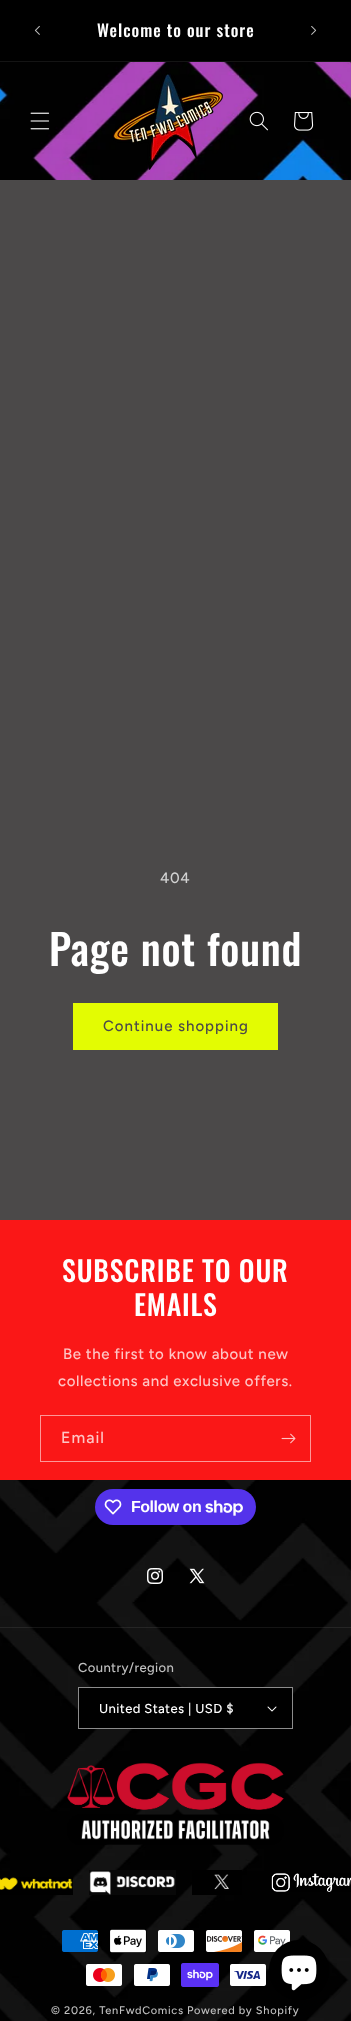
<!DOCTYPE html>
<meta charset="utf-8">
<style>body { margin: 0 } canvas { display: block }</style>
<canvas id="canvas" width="351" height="2021"></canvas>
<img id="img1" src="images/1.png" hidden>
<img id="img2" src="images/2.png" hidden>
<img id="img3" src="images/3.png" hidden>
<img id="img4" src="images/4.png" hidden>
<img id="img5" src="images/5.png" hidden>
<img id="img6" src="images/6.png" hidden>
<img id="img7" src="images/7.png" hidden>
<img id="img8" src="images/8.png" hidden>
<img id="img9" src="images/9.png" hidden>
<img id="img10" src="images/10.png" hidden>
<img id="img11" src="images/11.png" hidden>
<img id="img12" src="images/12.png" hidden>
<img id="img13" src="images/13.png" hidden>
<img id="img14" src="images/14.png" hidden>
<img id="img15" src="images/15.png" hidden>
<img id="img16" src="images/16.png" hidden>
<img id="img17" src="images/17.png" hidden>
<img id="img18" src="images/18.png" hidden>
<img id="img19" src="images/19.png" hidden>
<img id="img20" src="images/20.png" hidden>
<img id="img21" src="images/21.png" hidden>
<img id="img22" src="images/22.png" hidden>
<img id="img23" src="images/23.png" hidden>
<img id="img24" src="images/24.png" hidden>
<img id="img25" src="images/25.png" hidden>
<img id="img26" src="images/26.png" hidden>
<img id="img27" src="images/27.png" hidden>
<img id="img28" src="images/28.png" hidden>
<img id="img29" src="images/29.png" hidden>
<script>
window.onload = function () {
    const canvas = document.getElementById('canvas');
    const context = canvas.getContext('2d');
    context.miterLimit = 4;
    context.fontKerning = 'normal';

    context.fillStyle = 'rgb(75, 73, 73)';
    context.fillRect(0, 0, 351, 2021);
    context.fillStyle = 'rgb(0, 0, 0)';
    context.fillRect(0, 0, 351, 61);
    context.fillStyle = 'rgb(20, 20, 20)';
    context.fillRect(0, 61, 351, 1);
    context.drawImage(document.getElementById('img1'), 34, 25, 6, 10);
    context.drawImage(document.getElementById('img2'), 311, 26, 6, 9);
    context.drawImage(document.getElementById('img3'), 0, 62, 351, 118);
    context.drawImage(document.getElementById('img4'), 30, 112, 20, 18);
    context.drawImage(document.getElementById('img5'), 113, 73, 110, 97);
    context.drawImage(document.getElementById('img6'), 249, 111, 19, 20);
    context.drawImage(document.getElementById('img7'), 294, 112, 20, 19);
    context.fillStyle = 'rgb(227, 252, 2)';
    context.fillRect(73, 1003, 205, 47);
    context.fillStyle = 'rgb(250, 23, 23)';
    context.fillRect(0, 1220, 351, 260);
    context.strokeStyle = 'rgb(253, 151, 151)';
    context.strokeRect(40.5, 1415.5, 270, 46);
    context.drawImage(document.getElementById('img8'), 281, 1433, 15, 11);
    context.drawImage(document.getElementById('img9'), 0, 1480, 351, 541);
    context.fillStyle = 'rgb(84, 51, 235)';
    context.beginPath();
    context.roundRect(95, 1489, 161, 36, 18);
    context.fill();
    context.drawImage(document.getElementById('img10'), 104, 1499, 18, 16);
    context.drawImage(document.getElementById('img11'), 205, 1500, 38, 16);
    context.drawImage(document.getElementById('img12'), 147, 1568, 16, 16);
    context.drawImage(document.getElementById('img13'), 189, 1568, 16, 16);
    context.fillStyle = 'rgba(255, 255, 255, 0.08)';
    context.fillRect(0, 1627, 351, 1);
    context.fillStyle = 'rgb(0, 0, 0)';
    context.fillRect(79, 1688, 213, 40);
    context.drawImage(document.getElementById('img14'), 267, 1706, 10, 6);
    context.strokeStyle = 'rgb(140, 140, 140)';
    context.strokeRect(78.5, 1687.5, 214, 41);
    context.drawImage(document.getElementById('img15'), 67, 1762, 217, 83);
    context.drawImage(document.getElementById('img16'), 0, 1877, 73, 18);
    context.drawImage(document.getElementById('img17'), 89, 1870, 87, 25);
    context.drawImage(document.getElementById('img18'), 192, 1870, 50, 25);
    context.drawImage(document.getElementById('img19'), 271, 1873, 80, 19);
    context.drawImage(document.getElementById('img20'), 62, 1930, 36, 22);
    context.drawImage(document.getElementById('img21'), 110, 1929, 37, 24);
    context.drawImage(document.getElementById('img22'), 158, 1930, 36, 22);
    context.drawImage(document.getElementById('img23'), 206, 1930, 37, 22);
    context.drawImage(document.getElementById('img24'), 254, 1930, 36, 22);
    context.drawImage(document.getElementById('img25'), 86, 1964, 36, 22);
    context.drawImage(document.getElementById('img26'), 134, 1964, 36, 22);
    context.drawImage(document.getElementById('img27'), 181, 1963, 38, 24);
    context.drawImage(document.getElementById('img28'), 230, 1964, 36, 22);
    context.beginPath();
    context.arc(299, 1970, 30, 0, 2 * Math.PI);
    context.fill();
    context.drawImage(document.getElementById('img29'), 281, 1955, 36, 36);
    context.letterSpacing = '1px';
    context.font = '500 16.75px Oswald';
    context.fillStyle = 'rgb(255, 255, 255)';
    context.fillText('Welcome to our store', 97, 37);
    context.letterSpacing = '0.6px';
    context.font = '500 15px Figtree';
    context.fillStyle = 'rgb(210, 210, 210)';
    context.fillText('404', 160, 883);
    context.letterSpacing = '0.8px';
    context.font = '500 42px Oswald';
    context.fillStyle = 'rgb(255, 255, 255)';
    context.fillText('Page not found', 49, 966);
    context.letterSpacing = '1px';
    context.font = '500 15px Figtree';
    context.fillStyle = 'rgb(75, 73, 73)';
    context.fillText('Continue shopping', 103, 1031);
    context.letterSpacing = '0.8px';
    context.font = '500 28px Oswald';
    context.fillStyle = 'rgb(255, 255, 255)';
    context.fillText('SUBSCRIBE TO OUR', 62, 1282);
    context.fillText('EMAILS', 134, 1316);
    context.letterSpacing = '0.6px';
    context.font = '500 15px Figtree';
    context.fillStyle = 'rgb(254, 197, 197)';
    context.fillText('Be the first to know about new', 63, 1359);
    context.fillText('collections and exclusive offers.', 58, 1386);
    context.letterSpacing = '1px';
    context.font = '500 16px Figtree';
    context.fillText('Email', 61, 1443);
    context.letterSpacing = '-0.5px';
    context.font = 'bold 16px Liberation Sans';
    context.fillStyle = 'rgb(255, 255, 255)';
    context.fillText('Follow on', 131, 1512);
    context.letterSpacing = '0.4px';
    context.font = '500 13px Figtree';
    context.fillStyle = 'rgb(192, 192, 192)';
    context.fillText('Country/region', 78, 1672);
    context.fillStyle = 'rgb(255, 255, 255)';
    context.fillText('United States | USD $', 99, 1713);
    context.letterSpacing = '0.7px';
    context.font = '500 11px Figtree';
    context.fillStyle = 'rgb(192, 192, 192)';
    context.fillText('© 2026, TenFwdComics', 51, 2014);
    context.fillText('Powered by Shopify', 187, 2014);
};
</script>
